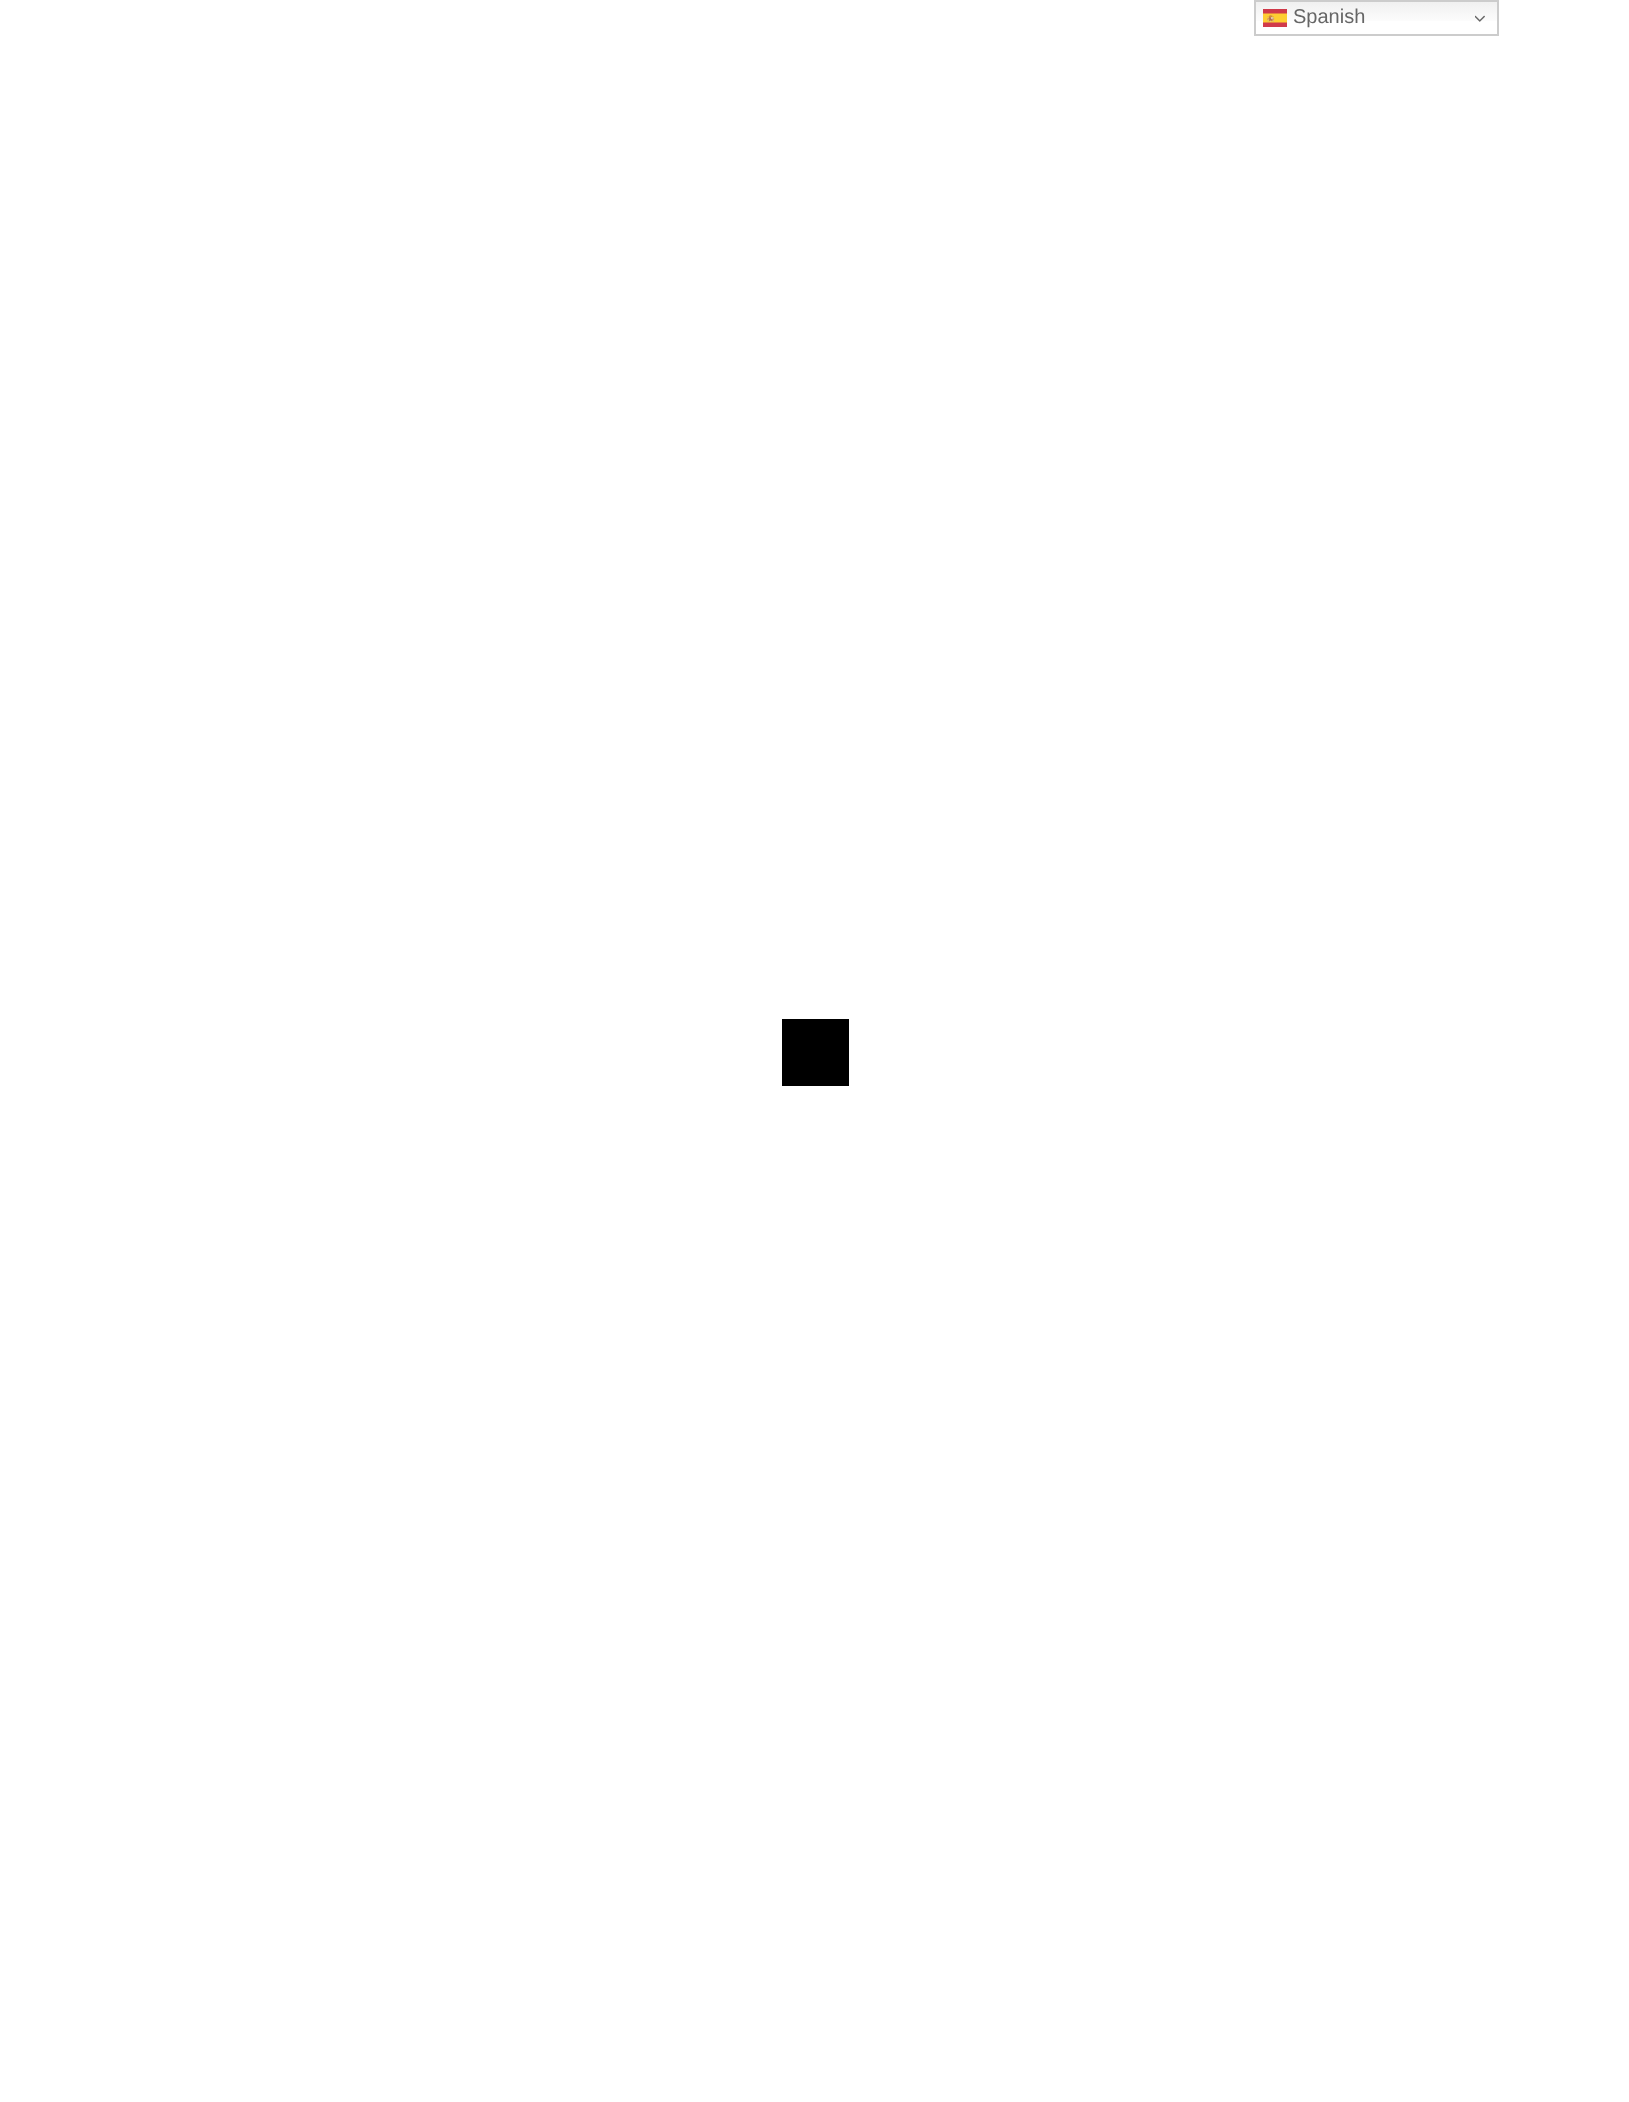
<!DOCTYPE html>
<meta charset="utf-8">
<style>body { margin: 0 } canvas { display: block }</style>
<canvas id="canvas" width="1629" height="2102"></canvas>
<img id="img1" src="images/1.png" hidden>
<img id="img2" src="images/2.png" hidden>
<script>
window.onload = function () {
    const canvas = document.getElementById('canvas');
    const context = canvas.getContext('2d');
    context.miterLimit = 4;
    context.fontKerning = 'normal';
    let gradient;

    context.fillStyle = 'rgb(255, 255, 255)';
    context.fillRect(0, 0, 1629, 2102);
    gradient = context.createLinearGradient(1376, 0, 1376, 36);
    gradient.addColorStop(0, 'rgb(239, 239, 239)');
    gradient.addColorStop(0.7, 'rgb(255, 255, 255)');
    context.fillStyle = gradient;
    context.fillRect(1256, 2, 241, 19);
    context.strokeStyle = 'rgb(204, 204, 204)';
    context.lineWidth = 2;
    context.strokeRect(1255, 1, 243, 34);
    context.drawImage(document.getElementById('img1'), 1263, 9, 24, 18);
    context.drawImage(document.getElementById('img2'), 1475, 15, 10, 7);
    context.fillStyle = 'rgb(0, 0, 0)';
    context.fillRect(782, 1019, 67, 67);
    context.font = '20px Liberation Sans';
    context.fillStyle = 'rgb(102, 102, 102)';
    context.fillText('Spanish', 1293, 23);
};
</script>
